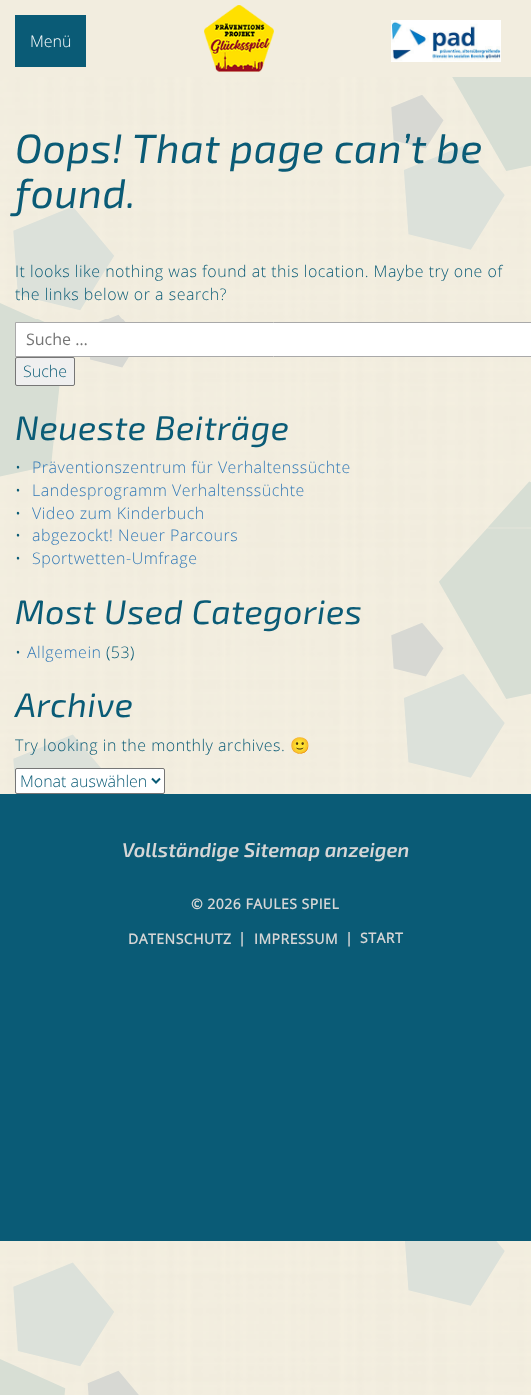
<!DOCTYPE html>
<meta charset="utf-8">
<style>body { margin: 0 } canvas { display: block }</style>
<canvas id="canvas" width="531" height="1395"></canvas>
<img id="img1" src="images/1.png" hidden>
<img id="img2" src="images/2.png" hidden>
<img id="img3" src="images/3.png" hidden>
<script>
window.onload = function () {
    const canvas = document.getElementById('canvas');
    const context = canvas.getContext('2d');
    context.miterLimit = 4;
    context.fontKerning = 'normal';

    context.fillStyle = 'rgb(255, 255, 255)';
    context.fillRect(0, 0, 531, 1395);
    context.drawImage(document.getElementById('img1'), 0, 77, 531, 1318);
    context.fillStyle = 'rgb(242, 237, 223)';
    context.fillRect(0, 0, 531, 77);
    context.fillStyle = 'rgb(10, 91, 118)';
    context.fillRect(15, 15, 71, 52);
    context.drawImage(document.getElementById('img2'), 204, 5, 70, 67);
    context.drawImage(document.getElementById('img3'), 391, 20, 110, 42);
    context.fillStyle = 'rgb(255, 255, 255)';
    context.beginPath();
    context.rect(15.5, 322.5, 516, 34);
    context.fill();
    context.strokeStyle = 'rgb(169, 169, 169)';
    context.stroke();
    context.fillStyle = 'rgb(239, 239, 239)';
    context.beginPath();
    context.roundRect(15.5, 357.5, 59, 28, 1.5);
    context.fill();
    context.strokeStyle = 'rgb(118, 118, 118)';
    context.stroke();
    context.fillStyle = 'rgb(255, 255, 255)';
    context.beginPath();
    context.roundRect(15.5, 768.5, 149, 25, 1.5);
    context.fill();
    context.stroke();
    context.beginPath();
    context.moveTo(152, 778.5);
    context.lineTo(156, 782.5);
    context.lineTo(160, 778.5);
    context.strokeStyle = 'rgb(10, 91, 118)';
    context.lineWidth = 2;
    context.stroke();
    context.fillStyle = 'rgb(10, 91, 118)';
    context.fillRect(0, 794, 531, 447);
    context.font = '300 16px Open Sans';
    context.fillStyle = 'rgb(255, 255, 255)';
    context.fillText('Menü', 30, 47);
    context.letterSpacing = '0.5px';
    context.font = 'italic 41px "Exo 2"';
    context.fillStyle = 'rgb(10, 91, 118)';
    context.fillText('Oops! That page can’t be', 15, 163);
    context.fillText('found.', 15, 208);
    context.font = '300 16px Open Sans';
    context.fillText('It looks like nothing was found at this location. Maybe try one of', 15, 277);
    context.fillText('the links below or a search?', 15, 300);
    context.letterSpacing = '0px';
    context.font = '16px Open Sans';
    context.fillStyle = 'rgb(117, 117, 117)';
    context.fillText('Suche …', 26, 345);
    context.font = '300 16px Open Sans';
    context.fillStyle = 'rgb(10, 91, 118)';
    context.fillText('Suche', 23, 377);
    context.letterSpacing = '0.5px';
    context.font = 'italic 34px "Exo 2"';
    context.fillText('Neueste Beiträge', 15, 440);
    context.font = '300 16px Open Sans';
    context.fillText('•', 15, 473);
    context.fillStyle = 'rgb(51, 122, 183)';
    context.fillText('Präventionszentrum für Verhaltenssüchte', 32, 473);
    context.fillStyle = 'rgb(10, 91, 118)';
    context.fillText('•', 15, 496);
    context.fillStyle = 'rgb(51, 122, 183)';
    context.fillText('Landesprogramm Verhaltenssüchte', 32, 496);
    context.fillStyle = 'rgb(10, 91, 118)';
    context.fillText('•', 15, 519);
    context.fillStyle = 'rgb(51, 122, 183)';
    context.fillText('Video zum Kinderbuch', 32, 519);
    context.fillStyle = 'rgb(10, 91, 118)';
    context.fillText('•', 15, 541);
    context.fillStyle = 'rgb(51, 122, 183)';
    context.fillText('abgezockt! Neuer Parcours', 32, 541);
    context.fillStyle = 'rgb(10, 91, 118)';
    context.fillText('•', 15, 564);
    context.fillStyle = 'rgb(51, 122, 183)';
    context.fillText('Sportwetten-Umfrage', 32, 564);
    context.font = 'italic 34px "Exo 2"';
    context.fillStyle = 'rgb(10, 91, 118)';
    context.fillText('Most Used Categories', 15, 624);
    context.font = '300 16px Open Sans';
    context.fillText('•', 15, 658);
    context.fillStyle = 'rgb(51, 122, 183)';
    context.fillText('Allgemein', 27, 658);
    context.fillStyle = 'rgb(10, 91, 118)';
    context.fillText('(53)', 106, 658);
    context.font = 'italic 34px "Exo 2"';
    context.fillText('Archive', 15, 717);
    context.font = '300 16px Open Sans';
    context.fillText('Try looking in the monthly archives.', 15, 751);
    context.font = '16px Noto Color Emoji';
    context.fillText('🙂', 290, 751);
    context.letterSpacing = '0px';
    context.font = '300 16px Open Sans';
    context.fillText('Monat auswählen', 20, 787);
    context.font = 'italic 600 20px "Exo 2"';
    context.fillStyle = 'rgb(214, 214, 214)';
    context.fillText('Vollständige Sitemap anzeigen', 122, 857);
    context.letterSpacing = '0.5px';
    context.font = 'bold 14px Open Sans';
    context.fillText('© 2026 FAULES SPIEL', 191, 909);
    context.fillText('DATENSCHUTZ', 128, 944);
    context.fillText('|', 238, 943);
    context.fillText('IMPRESSUM', 254, 944);
    context.fillText('|', 345, 943);
    context.fillText('START', 360, 943);
};
</script>
